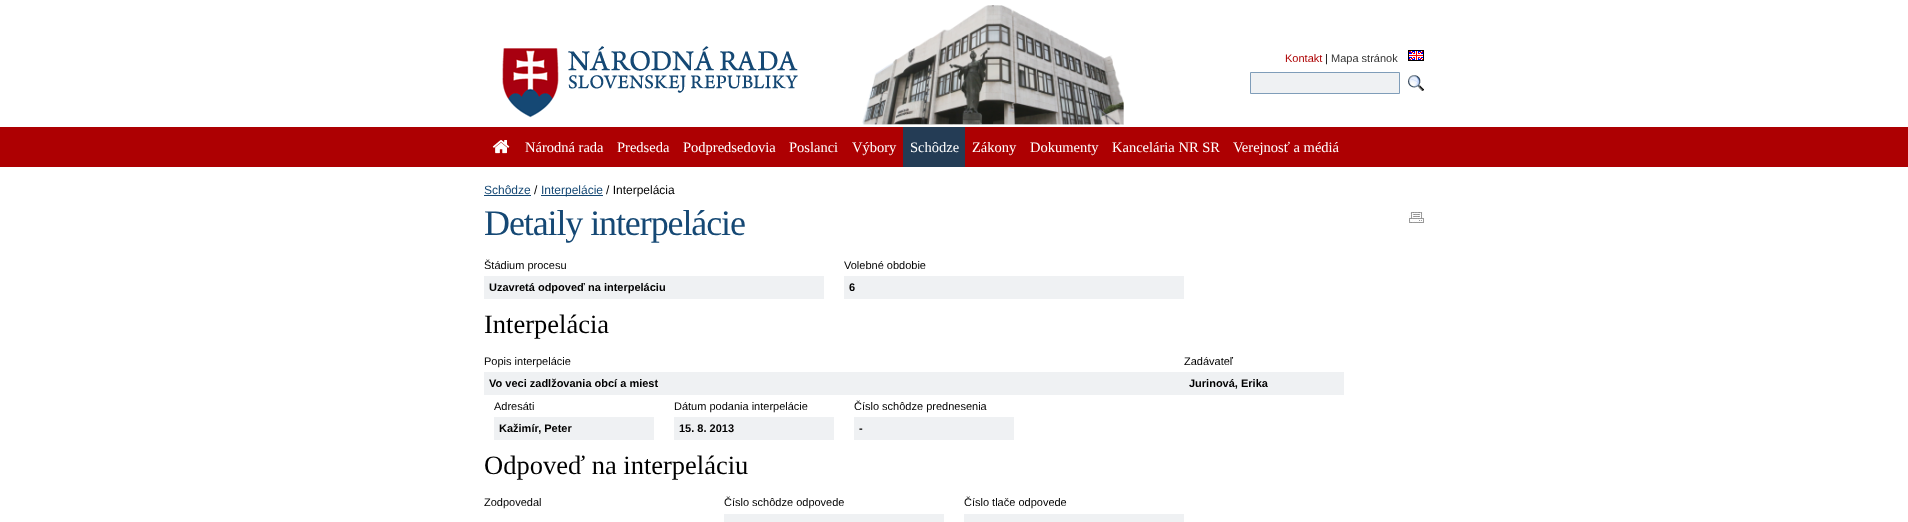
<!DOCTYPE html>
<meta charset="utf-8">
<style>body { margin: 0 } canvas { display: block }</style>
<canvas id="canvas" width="1908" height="522"></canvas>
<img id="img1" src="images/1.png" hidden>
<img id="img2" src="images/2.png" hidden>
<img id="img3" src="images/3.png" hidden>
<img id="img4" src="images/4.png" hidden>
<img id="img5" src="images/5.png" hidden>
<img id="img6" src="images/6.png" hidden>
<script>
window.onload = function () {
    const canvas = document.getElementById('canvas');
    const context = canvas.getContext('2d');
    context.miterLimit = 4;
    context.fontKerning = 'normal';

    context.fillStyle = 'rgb(255, 255, 255)';
    context.fillRect(0, 0, 1908, 522);
    context.fillStyle = 'rgb(173, 0, 2)';
    context.fillRect(0, 127, 1908, 40);
    context.drawImage(document.getElementById('img1'), 502, 5, 622, 120);
    context.drawImage(document.getElementById('img2'), 568, 46, 230, 47);
    context.drawImage(document.getElementById('img3'), 1408, 50, 16, 11);
    context.fillStyle = 'rgb(239, 241, 243)';
    context.beginPath();
    context.rect(1250.5, 72.5, 149, 21);
    context.fill();
    context.strokeStyle = 'rgb(127, 157, 185)';
    context.stroke();
    context.drawImage(document.getElementById('img4'), 1408, 75, 16, 16);
    context.drawImage(document.getElementById('img5'), 492, 140, 18, 14);
    context.fillStyle = 'rgb(36, 60, 85)';
    context.fillRect(903, 127, 62, 40);
    context.fillStyle = 'rgb(21, 72, 116)';
    context.fillRect(484, 195, 47, 1);
    context.fillRect(541, 195, 62, 1);
    context.drawImage(document.getElementById('img6'), 1409, 212, 15, 11);
    context.fillStyle = 'rgb(239, 241, 243)';
    context.fillRect(484, 276, 340, 23);
    context.fillRect(844, 276, 340, 23);
    context.fillRect(484, 372, 860, 23);
    context.fillRect(494, 417, 160, 23);
    context.fillRect(674, 417, 160, 23);
    context.fillRect(854, 417, 160, 23);
    context.fillRect(724, 514, 220, 8);
    context.fillRect(964, 514, 220, 8);
    context.font = '11px Liberation Sans';
    context.fillStyle = 'rgb(173, 0, 2)';
    context.fillText('Kontakt', 1285, 62);
    context.fillStyle = 'rgb(0, 0, 0)';
    context.fillText('|', 1325, 62);
    context.fillStyle = 'rgb(51, 51, 51)';
    context.fillText('Mapa stránok', 1331, 62);
    context.font = '14.5px Liberation Serif';
    context.fillStyle = 'rgb(255, 255, 255)';
    context.fillText('Národná rada', 525, 152);
    context.fillText('Predseda', 617, 152);
    context.fillText('Podpredsedovia', 683, 152);
    context.fillText('Poslanci', 789, 152);
    context.fillText('Výbory', 852, 152);
    context.fillText('Schôdze', 910, 152);
    context.fillText('Zákony', 972, 152);
    context.fillText('Dokumenty', 1030, 152);
    context.fillText('Kancelária NR SR', 1112, 152);
    context.fillText('Verejnosť a médiá', 1233, 152);
    context.font = '12px Liberation Sans';
    context.fillStyle = 'rgb(21, 72, 116)';
    context.fillText('Schôdze', 484, 194);
    context.fillStyle = 'rgb(0, 0, 0)';
    context.fillText('/', 534, 194);
    context.fillStyle = 'rgb(21, 72, 116)';
    context.fillText('Interpelácie', 541, 194);
    context.fillStyle = 'rgb(0, 0, 0)';
    context.fillText('/ Interpelácia', 606, 194);
    context.letterSpacing = '-1.1px';
    context.font = '36px Liberation Serif';
    context.fillStyle = 'rgb(21, 72, 116)';
    context.fillText('Detaily interpelácie', 484, 235);
    context.letterSpacing = '0px';
    context.font = '11px Liberation Sans';
    context.fillStyle = 'rgb(0, 0, 0)';
    context.fillText('Štádium procesu', 484, 269);
    context.font = 'bold 11px Liberation Sans';
    context.fillText('Uzavretá odpoveď na interpeláciu', 489, 291);
    context.font = '11px Liberation Sans';
    context.fillText('Volebné obdobie', 844, 269);
    context.font = 'bold 11px Liberation Sans';
    context.fillText('6', 849, 291);
    context.font = '26.5px Liberation Serif';
    context.fillText('Interpelácia', 484, 333);
    context.font = '11px Liberation Sans';
    context.fillText('Popis interpelácie', 484, 365);
    context.font = 'bold 11px Liberation Sans';
    context.fillText('Vo veci zadlžovania obcí a miest', 489, 387);
    context.font = '11px Liberation Sans';
    context.fillText('Zadávateľ', 1184, 365);
    context.font = 'bold 11px Liberation Sans';
    context.fillText('Jurinová, Erika', 1189, 387);
    context.font = '11px Liberation Sans';
    context.fillText('Adresáti', 494, 410);
    context.font = 'bold 11px Liberation Sans';
    context.fillText('Kažimír, Peter', 499, 432);
    context.font = '11px Liberation Sans';
    context.fillText('Dátum podania interpelácie', 674, 410);
    context.font = 'bold 11px Liberation Sans';
    context.fillText('15. 8. 2013', 679, 432);
    context.font = '11px Liberation Sans';
    context.fillText('Číslo schôdze prednesenia', 854, 410);
    context.font = 'bold 11px Liberation Sans';
    context.fillText('-', 859, 432);
    context.font = '26.5px Liberation Serif';
    context.fillText('Odpoveď na interpeláciu', 484, 474);
    context.font = '11px Liberation Sans';
    context.fillText('Zodpovedal', 484, 506);
    context.fillText('Číslo schôdze odpovede', 724, 506);
    context.fillText('Číslo tlače odpovede', 964, 506);
};
</script>
